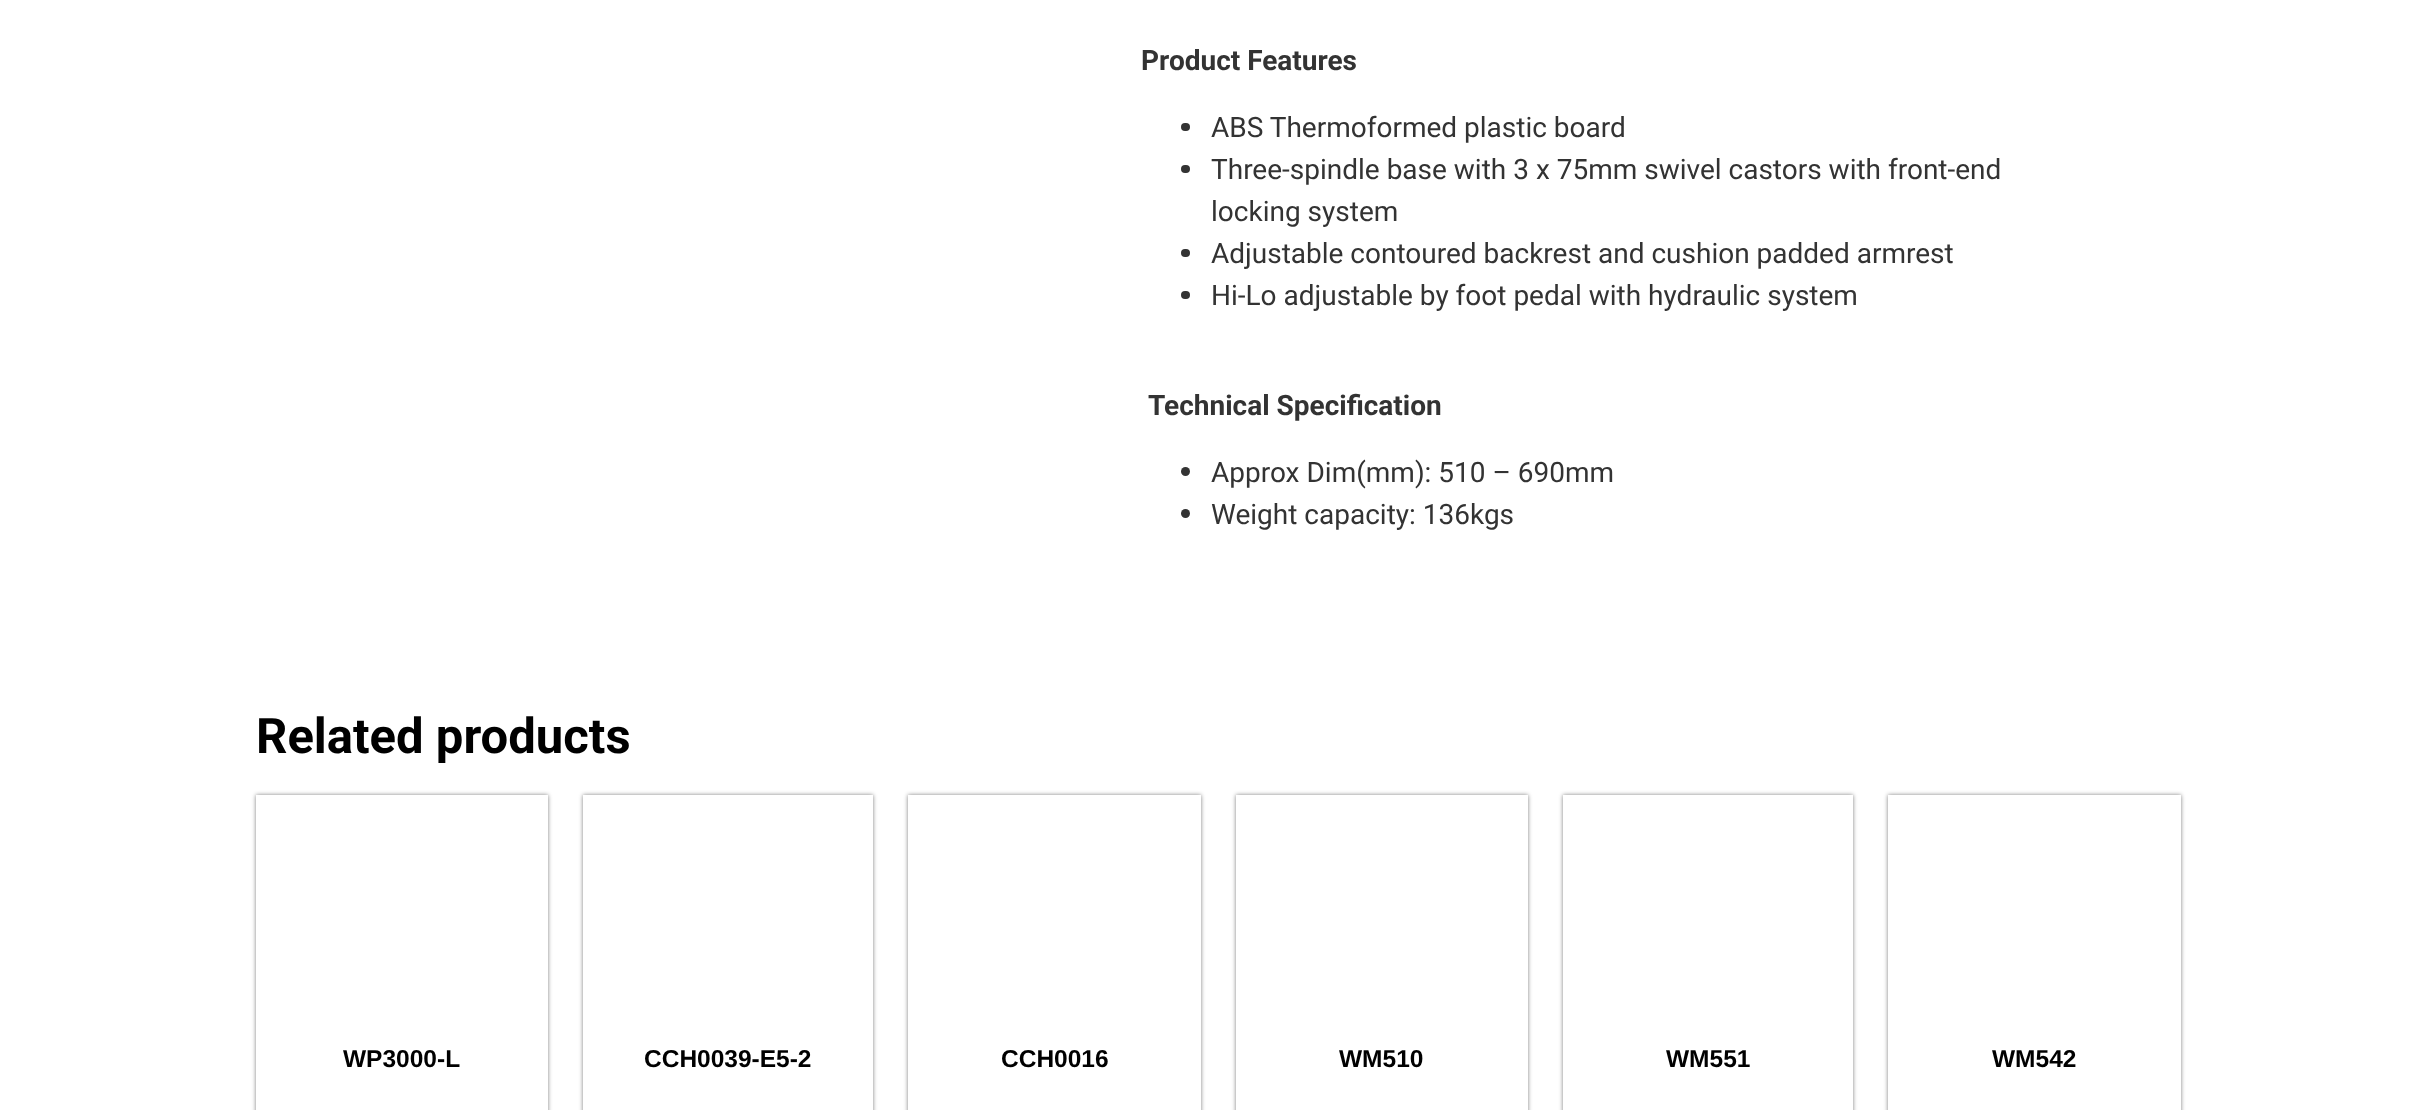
<!DOCTYPE html>
<meta charset="utf-8">
<style>body { margin: 0 } canvas { display: block }</style>
<canvas id="canvas" width="2436" height="1110"></canvas>
<script>
window.onload = function () {
    const canvas = document.getElementById('canvas');
    const context = canvas.getContext('2d');
    context.miterLimit = 4;
    context.fontKerning = 'normal';

    context.fillStyle = 'rgb(255, 255, 255)';
    context.fillRect(0, 0, 2436, 1110);
    context.fillStyle = 'rgb(51, 51, 51)';
    context.beginPath();
    context.roundRect(1181, 123, 9, 8, 4);
    context.fill();
    context.beginPath();
    context.roundRect(1181, 165, 9, 8, 4);
    context.fill();
    context.beginPath();
    context.roundRect(1181, 249, 9, 8, 4);
    context.fill();
    context.beginPath();
    context.roundRect(1181, 291, 9, 8, 4);
    context.fill();
    context.beginPath();
    context.arc(1185.5, 471.5, 4.5, 0, 2 * Math.PI);
    context.fill();
    context.beginPath();
    context.arc(1185.5, 513.5, 4.5, 0, 2 * Math.PI);
    context.fill();
    context.save();
    context.beginPath();
    context.moveTo(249, 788);
    context.lineTo(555, 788);
    context.lineTo(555, 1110);
    context.lineTo(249, 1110);
    context.closePath();
    context.moveTo(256, 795);
    context.lineTo(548, 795);
    context.lineTo(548, 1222);
    context.lineTo(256, 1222);
    context.closePath();
    context.clip('evenodd');
    context.fillStyle = 'rgba(0, 0, 0, 0.5)';
    context.filter = 'blur(2px)';
    context.beginPath();
    context.rect(256, 795, 292, 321);
    context.fill();
    context.filter = 'none';
    context.restore();
    context.save();
    context.beginPath();
    context.moveTo(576, 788);
    context.lineTo(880, 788);
    context.lineTo(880, 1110);
    context.lineTo(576, 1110);
    context.closePath();
    context.moveTo(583, 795);
    context.lineTo(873, 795);
    context.lineTo(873, 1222);
    context.lineTo(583, 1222);
    context.closePath();
    context.clip('evenodd');
    context.fillStyle = 'rgba(0, 0, 0, 0.5)';
    context.filter = 'blur(2px)';
    context.beginPath();
    context.rect(583, 795, 290, 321);
    context.fill();
    context.filter = 'none';
    context.restore();
    context.save();
    context.beginPath();
    context.moveTo(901, 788);
    context.lineTo(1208, 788);
    context.lineTo(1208, 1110);
    context.lineTo(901, 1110);
    context.closePath();
    context.moveTo(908, 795);
    context.lineTo(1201, 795);
    context.lineTo(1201, 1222);
    context.lineTo(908, 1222);
    context.closePath();
    context.clip('evenodd');
    context.fillStyle = 'rgba(0, 0, 0, 0.5)';
    context.filter = 'blur(2px)';
    context.beginPath();
    context.rect(908, 795, 293, 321);
    context.fill();
    context.filter = 'none';
    context.restore();
    context.save();
    context.beginPath();
    context.moveTo(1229, 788);
    context.lineTo(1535, 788);
    context.lineTo(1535, 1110);
    context.lineTo(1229, 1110);
    context.closePath();
    context.moveTo(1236, 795);
    context.lineTo(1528, 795);
    context.lineTo(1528, 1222);
    context.lineTo(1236, 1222);
    context.closePath();
    context.clip('evenodd');
    context.fillStyle = 'rgba(0, 0, 0, 0.5)';
    context.filter = 'blur(2px)';
    context.beginPath();
    context.rect(1236, 795, 292, 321);
    context.fill();
    context.filter = 'none';
    context.restore();
    context.save();
    context.beginPath();
    context.moveTo(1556, 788);
    context.lineTo(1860, 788);
    context.lineTo(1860, 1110);
    context.lineTo(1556, 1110);
    context.closePath();
    context.moveTo(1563, 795);
    context.lineTo(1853, 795);
    context.lineTo(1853, 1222);
    context.lineTo(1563, 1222);
    context.closePath();
    context.clip('evenodd');
    context.fillStyle = 'rgba(0, 0, 0, 0.5)';
    context.filter = 'blur(2px)';
    context.beginPath();
    context.rect(1563, 795, 290, 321);
    context.fill();
    context.filter = 'none';
    context.restore();
    context.save();
    context.beginPath();
    context.moveTo(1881, 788);
    context.lineTo(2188, 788);
    context.lineTo(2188, 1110);
    context.lineTo(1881, 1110);
    context.closePath();
    context.moveTo(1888, 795);
    context.lineTo(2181, 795);
    context.lineTo(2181, 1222);
    context.lineTo(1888, 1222);
    context.closePath();
    context.clip('evenodd');
    context.fillStyle = 'rgba(0, 0, 0, 0.5)';
    context.filter = 'blur(2px)';
    context.beginPath();
    context.rect(1888, 795, 293, 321);
    context.fill();
    context.filter = 'none';
    context.restore();
    context.font = 'bold 28px Roboto';
    context.fillText('Product Features', 1141, 70);
    context.font = '28px Roboto';
    context.fillText('ABS Thermoformed plastic board', 1211, 137);
    context.fillText('Three-spindle base with 3 x 75mm swivel castors with front-end', 1211, 179);
    context.fillText('locking system', 1211, 221);
    context.fillText('Adjustable contoured backrest and cushion padded armrest', 1211, 263);
    context.fillText('Hi-Lo adjustable by foot pedal with hydraulic system', 1211, 305);
    context.font = 'bold 28px Roboto';
    context.fillText('Technical Specification', 1148, 415);
    context.font = '28px Roboto';
    context.fillText('Approx Dim(mm): 510 – 690mm', 1211, 482);
    context.fillText('Weight capacity: 136kgs', 1211, 524);
    context.font = 'bold 49px Roboto';
    context.fillStyle = 'rgb(0, 0, 0)';
    context.fillText('Related products', 256, 753);
    context.font = 'bold 24.5px Liberation Sans';
    context.fillText('WP3000-L', 343, 1067);
    context.fillText('CCH0039-E5-2', 644, 1067);
    context.fillText('CCH0016', 1001, 1067);
    context.fillText('WM510', 1339, 1067);
    context.fillText('WM551', 1666, 1067);
    context.fillText('WM542', 1992, 1067);
};
</script>
